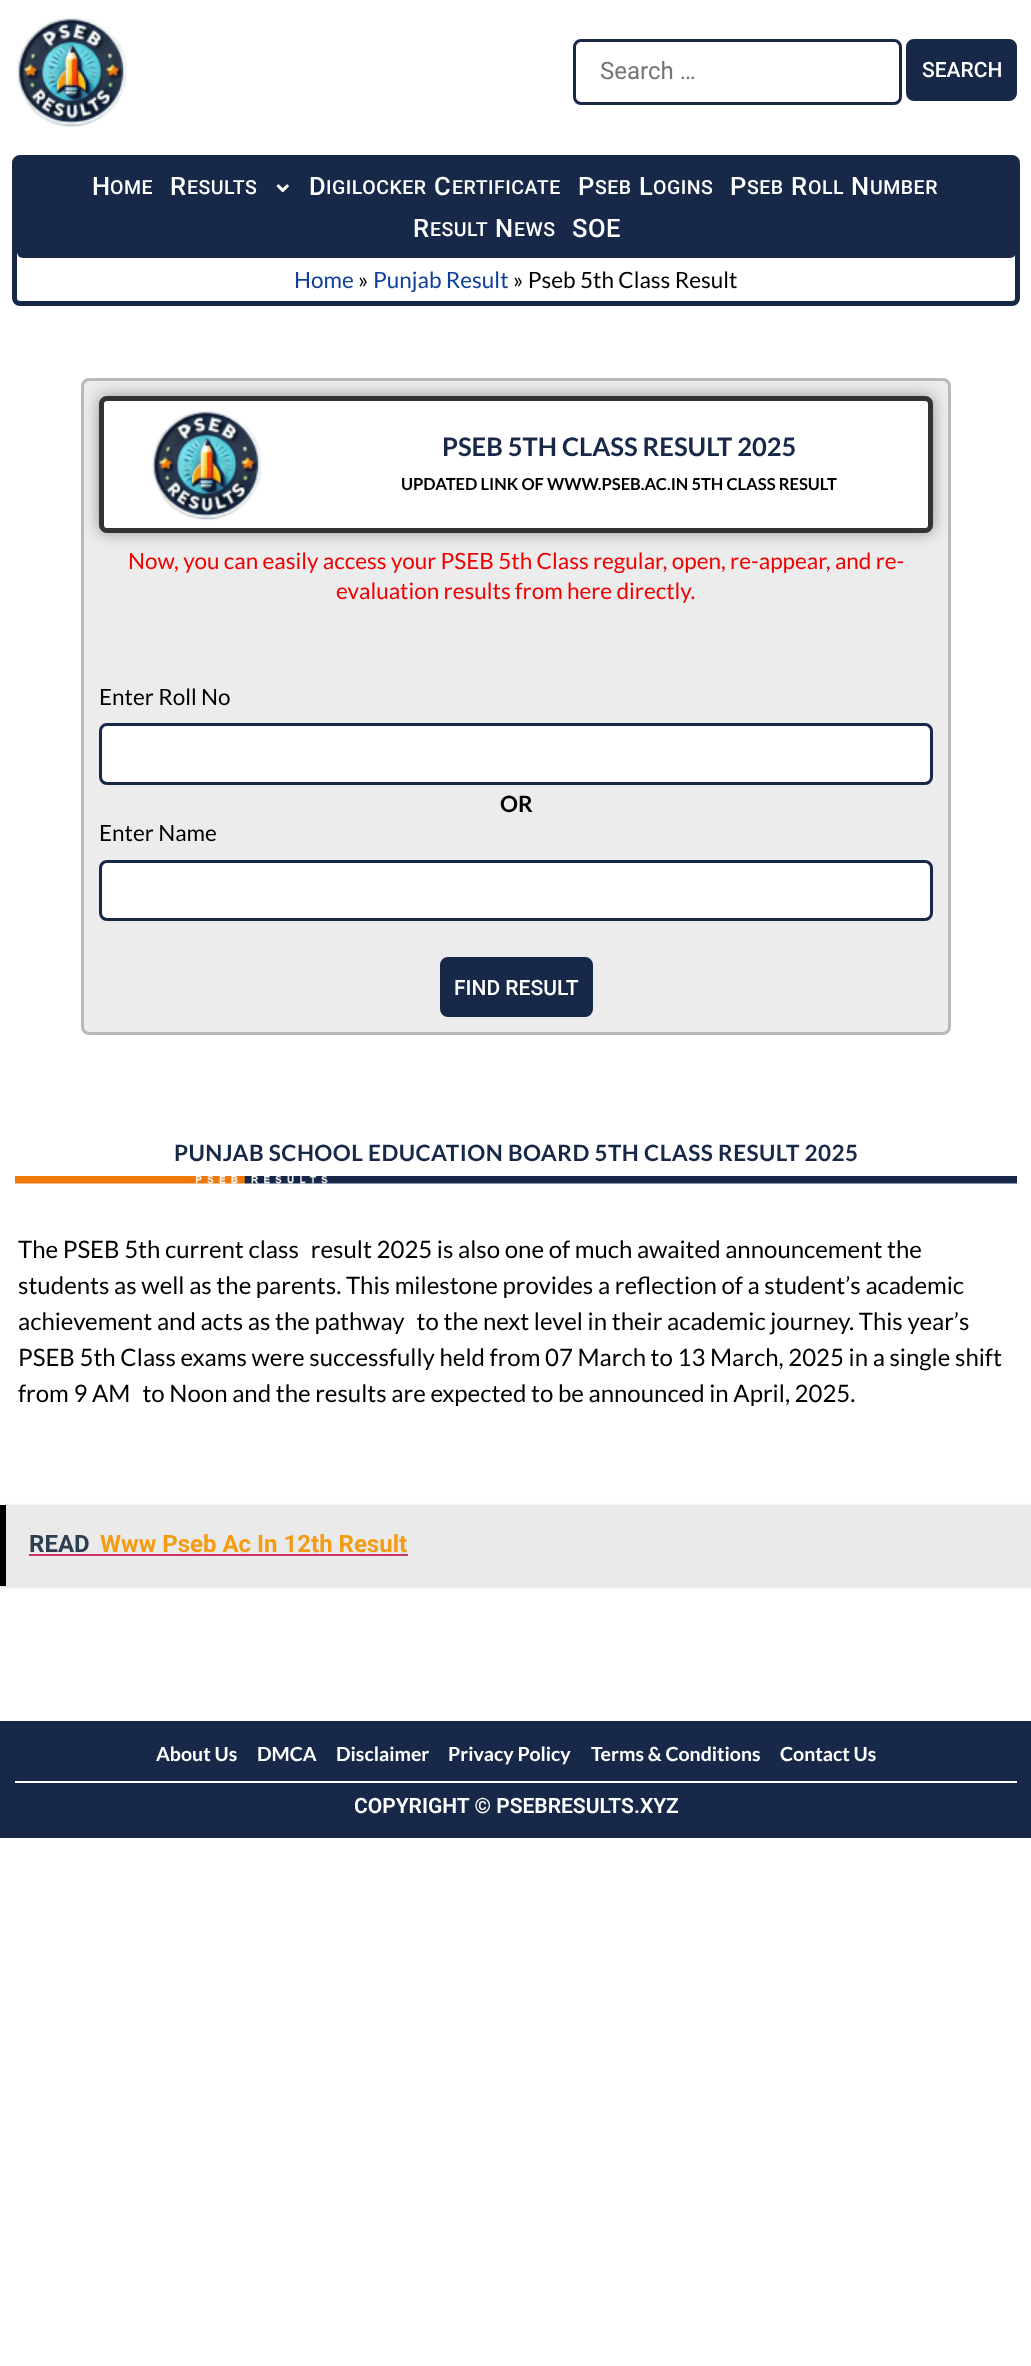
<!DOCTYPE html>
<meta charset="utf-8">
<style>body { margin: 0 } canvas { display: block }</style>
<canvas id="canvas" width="1031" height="2366"></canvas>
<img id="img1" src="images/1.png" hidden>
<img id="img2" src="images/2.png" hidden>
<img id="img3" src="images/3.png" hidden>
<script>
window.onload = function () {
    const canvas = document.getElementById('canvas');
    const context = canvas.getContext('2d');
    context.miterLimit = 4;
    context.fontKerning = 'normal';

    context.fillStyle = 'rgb(255, 255, 255)';
    context.fillRect(0, 0, 1031, 2366);
    context.drawImage(document.getElementById('img1'), 16, 17, 111, 111);
    context.beginPath();
    context.roundRect(574.5, 40.5, 326, 63, 6.5);
    context.strokeStyle = 'rgb(23, 40, 72)';
    context.lineWidth = 3;
    context.stroke();
    context.fillStyle = 'rgb(23, 40, 72)';
    context.beginPath();
    context.roundRect(907.5, 40.5, 108, 59, 6.5);
    context.fill();
    context.stroke();
    context.beginPath();
    context.roundRect(14.5, 157.5, 1003, 146, 5.5);
    context.lineWidth = 5;
    context.stroke();
    context.beginPath();
    context.roundRect(17, 159, 999, 99, [0, 0, 6, 6]);
    context.fill();
    context.drawImage(document.getElementById('img2'), 276, 184, 13, 9);
    context.fillStyle = 'rgb(236, 236, 236)';
    context.beginPath();
    context.roundRect(82.5, 379.5, 867, 654, 6.5);
    context.fill();
    context.strokeStyle = 'rgb(185, 185, 185)';
    context.lineWidth = 3;
    context.stroke();
    context.fillStyle = 'rgba(0, 0, 0, 0.37)';
    context.filter = 'blur(7.5px)';
    context.beginPath();
    context.roundRect(99, 396, 834, 137, 8);
    context.fill();
    context.filter = 'none';
    context.fillStyle = 'rgb(255, 255, 255)';
    context.beginPath();
    context.roundRect(101.5, 398.5, 829, 132, 5.5);
    context.fill();
    context.strokeStyle = 'rgb(51, 51, 51)';
    context.lineWidth = 5;
    context.stroke();
    context.drawImage(document.getElementById('img1'), 151, 410, 111, 111);
    context.beginPath();
    context.roundRect(100.5, 724.5, 831, 59, 6.5);
    context.fill();
    context.strokeStyle = 'rgb(23, 40, 72)';
    context.lineWidth = 3;
    context.stroke();
    context.beginPath();
    context.roundRect(100.5, 861.5, 831, 58, 6.5);
    context.fill();
    context.stroke();
    context.fillStyle = 'rgb(23, 40, 72)';
    context.beginPath();
    context.roundRect(441.5, 958.5, 150, 57, 6.5);
    context.fill();
    context.stroke();
    context.drawImage(document.getElementById('img3'), 15, 1176, 1002, 8);
    context.fillStyle = 'rgba(0, 0, 0, 0.17)';
    context.filter = 'blur(1.5px)';
    context.beginPath();
    context.rect(0, 1506, 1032, 81);
    context.fill();
    context.filter = 'none';
    context.fillStyle = 'rgb(234, 234, 234)';
    context.fillRect(6, 1505, 1025, 81);
    context.fillStyle = 'rgb(0, 0, 0)';
    context.fillRect(0, 1505, 6, 81);
    context.fillStyle = 'rgb(204, 51, 102)';
    context.fillRect(29, 1554, 379, 2);
    context.fillStyle = 'rgb(23, 40, 72)';
    context.fillRect(0, 1721, 1031, 117);
    context.fillStyle = 'rgb(255, 255, 255)';
    context.fillRect(15, 1781, 1002, 2);
    context.font = '24px Roboto';
    context.fillStyle = 'rgb(117, 117, 117)';
    context.fillText('Search …', 600, 79);
    context.font = '500 21px Roboto';
    context.fillStyle = 'rgb(255, 255, 255)';
    context.fillText('SEARCH', 922, 77);
    context.letterSpacing = '0.5px';
    context.font = '500 25.5px Roboto';
    context.fillText('H', 92, 195);
    context.font = '500 19.5px Roboto';
    context.fillText('OME', 110, 194);
    context.font = '500 25.5px Roboto';
    context.fillText('R', 170, 195);
    context.font = '500 19.5px Roboto';
    context.fillText('ESULTS', 187, 194);
    context.font = '500 25.5px Roboto';
    context.fillText('D', 309, 195);
    context.font = '500 19.5px Roboto';
    context.fillText('IGILOCKER', 326, 194);
    context.font = '500 25.5px Roboto';
    context.fillText('C', 434, 195);
    context.font = '500 19.5px Roboto';
    context.fillText('ERTIFICATE', 452, 194);
    context.font = '500 25.5px Roboto';
    context.fillText('P', 578, 195);
    context.font = '500 19.5px Roboto';
    context.fillText('SEB', 595, 194);
    context.font = '500 25.5px Roboto';
    context.fillText('L', 639, 195);
    context.font = '500 19.5px Roboto';
    context.fillText('OGINS', 653, 194);
    context.font = '500 25.5px Roboto';
    context.fillText('P', 730, 195);
    context.font = '500 19.5px Roboto';
    context.fillText('SEB', 747, 194);
    context.font = '500 25.5px Roboto';
    context.fillText('R', 791, 195);
    context.font = '500 19.5px Roboto';
    context.fillText('OLL', 808, 194);
    context.font = '500 25.5px Roboto';
    context.fillText('N', 851, 195);
    context.font = '500 19.5px Roboto';
    context.fillText('UMBER', 870, 194);
    context.font = '500 25.5px Roboto';
    context.fillText('R', 413, 237);
    context.font = '500 19.5px Roboto';
    context.fillText('ESULT', 430, 236);
    context.font = '500 25.5px Roboto';
    context.fillText('N', 495, 237);
    context.font = '500 19.5px Roboto';
    context.fillText('EWS', 514, 236);
    context.font = '500 25.5px Roboto';
    context.fillText('SOE', 572, 237);
    context.letterSpacing = '0px';
    context.font = '22.5px Lato';
    context.fillStyle = 'rgb(15, 63, 153)';
    context.fillText('Home', 294, 288);
    context.fillStyle = 'rgb(0, 0, 0)';
    context.fillText('»', 358, 288);
    context.fillStyle = 'rgb(15, 63, 153)';
    context.fillText('Punjab Result', 373, 288);
    context.fillStyle = 'rgb(0, 0, 0)';
    context.fillText('» Pseb 5th Class Result', 513, 288);
    context.font = 'bold 25.5px Lato';
    context.fillStyle = 'rgb(23, 40, 72)';
    context.fillText('PSEB 5TH CLASS RESULT 2025', 442, 456);
    context.font = 'bold 16.5px Lato';
    context.fillStyle = 'rgb(0, 0, 0)';
    context.fillText('UPDATED LINK OF WWW.PSEB.AC.IN 5TH CLASS RESULT', 401, 490);
    context.font = '22.5px Lato';
    context.fillStyle = 'rgb(240, 0, 0)';
    context.fillText('Now, you can easily access your PSEB 5th Class regular, open, re-appear, and re-', 128, 569);
    context.fillText('evaluation results from here directly.', 336, 599);
    context.fillStyle = 'rgb(0, 0, 0)';
    context.fillText('Enter Roll No', 99, 705);
    context.font = 'bold 22.5px Lato';
    context.fillText('OR', 500, 812);
    context.font = '22.5px Lato';
    context.fillText('Enter Name', 99, 841);
    context.font = '500 21px Roboto';
    context.fillStyle = 'rgb(255, 255, 255)';
    context.fillText('FIND RESULT', 454, 995);
    context.letterSpacing = '0.45px';
    context.font = 'bold 22.5px Lato';
    context.fillStyle = 'rgb(23, 40, 72)';
    context.fillText('PUNJAB SCHOOL EDUCATION BOARD 5TH CLASS RESULT 2025', 174, 1161);
    context.letterSpacing = '0px';
    context.font = '24px Lato';
    context.fillStyle = 'rgb(0, 0, 0)';
    context.fillText('The PSEB 5th current class result 2025 is also one of much awaited announcement the', 18, 1258);
    context.fillText('students as well as the parents. This milestone provides a reflection of a student’s academic', 18, 1294);
    context.fillText('achievement and acts as the pathway to the next level in their academic journey. This year’s', 18, 1330);
    context.fillText('PSEB 5th Class exams were successfully held from 07 March to 13 March, 2025 in a single shift', 18, 1366);
    context.fillText('from 9 AM to Noon and the results are expected to be announced in April, 2025.', 18, 1402);
    context.font = 'bold 24px Roboto';
    context.fillStyle = 'rgb(44, 62, 80)';
    context.fillText('READ', 29, 1552);
    context.fillStyle = 'rgb(243, 156, 18)';
    context.fillText('Www Pseb Ac In 12th Result', 100, 1552);
    context.font = 'bold 19.5px Lato';
    context.fillStyle = 'rgb(255, 255, 255)';
    context.fillText('About Us', 156, 1761);
    context.fillText('DMCA', 257, 1761);
    context.fillText('Disclaimer', 336, 1761);
    context.fillText('Privacy Policy', 448, 1761);
    context.fillText('Terms & Conditions', 591, 1761);
    context.fillText('Contact Us', 780, 1761);
    context.font = '600 21px Roboto';
    context.fillText('COPYRIGHT © PSEBRESULTS.XYZ', 354, 1813);
};
</script>
